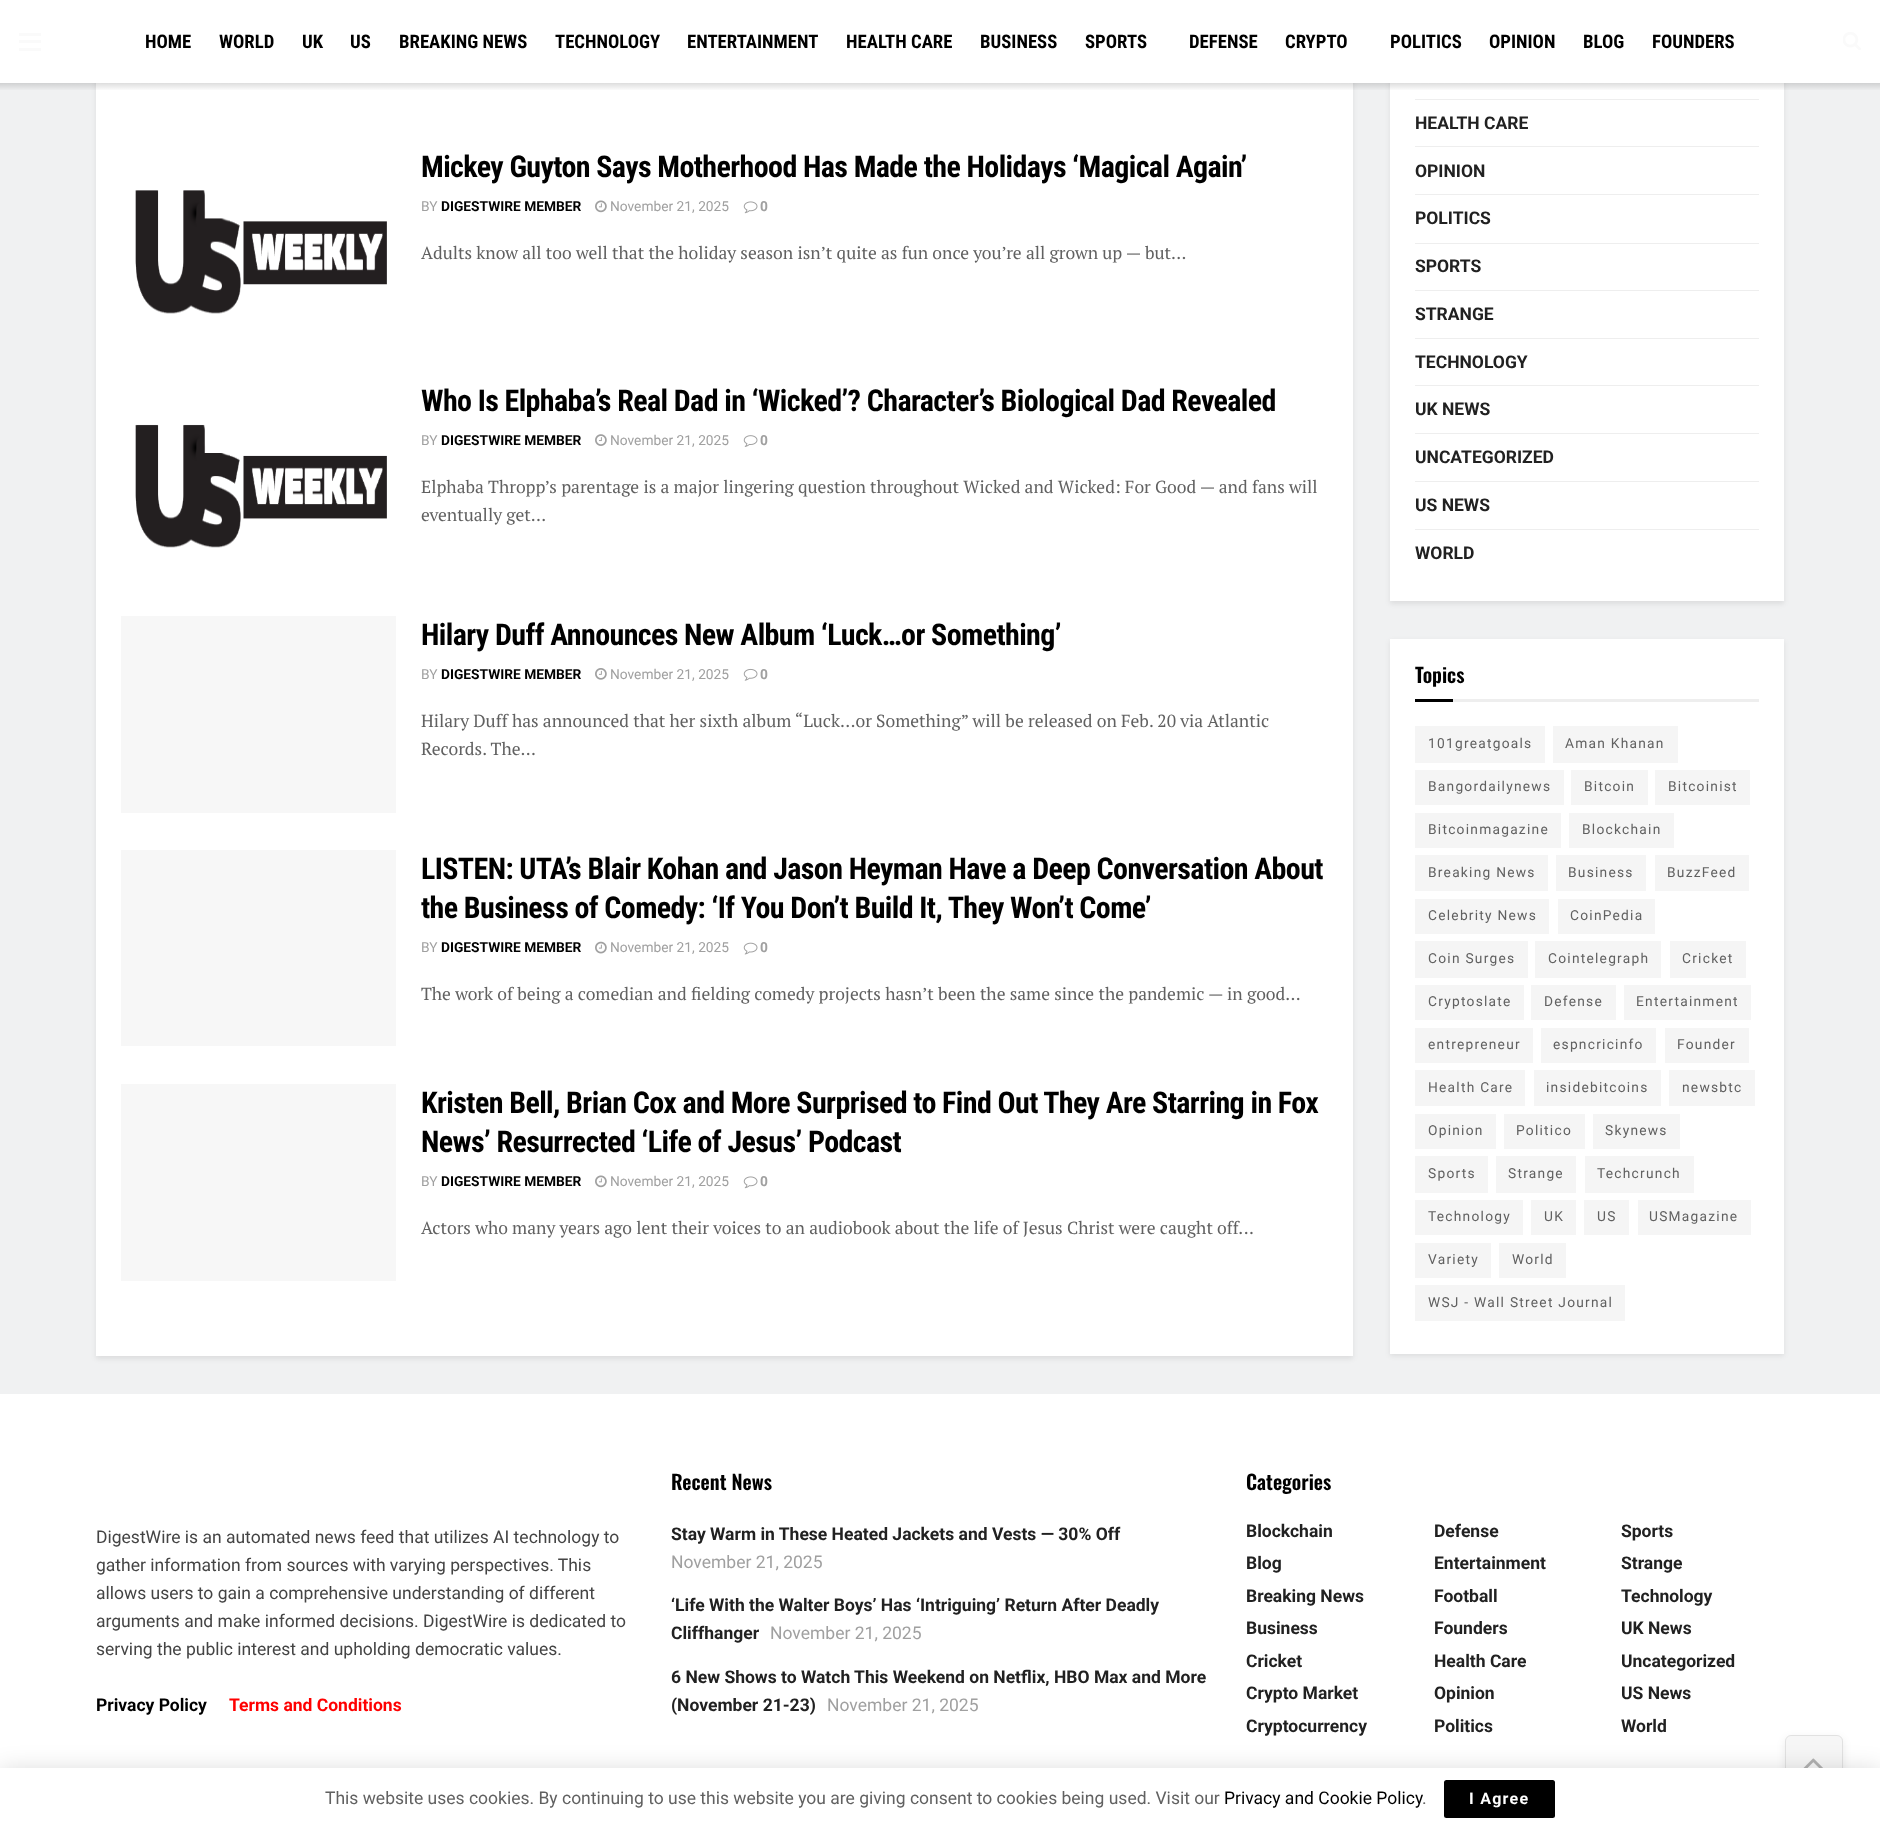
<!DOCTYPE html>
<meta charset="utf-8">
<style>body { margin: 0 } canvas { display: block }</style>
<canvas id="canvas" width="1880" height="1829"></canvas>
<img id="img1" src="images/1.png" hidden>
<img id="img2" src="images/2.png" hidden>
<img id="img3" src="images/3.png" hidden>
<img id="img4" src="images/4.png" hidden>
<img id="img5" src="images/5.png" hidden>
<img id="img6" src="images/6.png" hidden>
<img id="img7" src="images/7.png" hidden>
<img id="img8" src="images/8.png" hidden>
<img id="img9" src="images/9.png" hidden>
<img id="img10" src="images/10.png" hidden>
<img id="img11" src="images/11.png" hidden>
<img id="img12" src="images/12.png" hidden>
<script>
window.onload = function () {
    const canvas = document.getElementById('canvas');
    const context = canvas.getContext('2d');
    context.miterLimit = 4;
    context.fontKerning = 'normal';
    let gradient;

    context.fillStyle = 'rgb(240, 241, 242)';
    context.fillRect(0, 0, 1880, 1829);
    context.fillStyle = 'rgba(0, 0, 0, 0.08)';
    context.filter = 'blur(2.5px)';
    context.beginPath();
    context.rect(96, -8, 1257, 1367);
    context.fill();
    context.filter = 'none';
    context.filter = 'blur(2.5px)';
    context.beginPath();
    context.rect(1390, -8, 394, 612);
    context.fill();
    context.filter = 'none';
    context.fillStyle = 'rgb(255, 255, 255)';
    context.fillRect(0, 0, 1880, 83);
    context.fillStyle = 'rgb(250, 250, 250)';
    context.fillRect(19, 33, 22, 3);
    context.fillRect(19, 40, 22, 3);
    context.fillRect(19, 48, 22, 3);
    context.drawImage(document.getElementById('img1'), 1843, 32, 18, 18);
    context.fillStyle = 'rgb(255, 255, 255)';
    context.fillRect(96, 83, 1257, 1273);
    context.fillRect(1390, 83, 394, 518);
    gradient = context.createLinearGradient(940, 82, 940, 91);
    gradient.addColorStop(0, 'rgba(0, 0, 0, 0.15)');
    gradient.addColorStop(1, 'rgba(0, 0, 0, 0)');
    context.fillStyle = gradient;
    context.fillRect(0, 83, 1880, 7);
    context.drawImage(document.getElementById('img2'), 135, 190, 252, 124);
    context.drawImage(document.getElementById('img3'), 595, 200, 12, 13);
    context.drawImage(document.getElementById('img4'), 743, 201, 15, 13);
    context.drawImage(document.getElementById('img5'), 135, 424, 252, 124);
    context.drawImage(document.getElementById('img6'), 595, 434, 12, 12);
    context.drawImage(document.getElementById('img7'), 743, 435, 15, 12);
    context.fillStyle = 'rgb(247, 247, 247)';
    context.fillRect(121, 616, 275, 197);
    context.drawImage(document.getElementById('img8'), 595, 668, 12, 12);
    context.drawImage(document.getElementById('img9'), 743, 668, 15, 13);
    context.fillRect(121, 850, 275, 196);
    context.drawImage(document.getElementById('img10'), 595, 941, 12, 13);
    context.drawImage(document.getElementById('img11'), 743, 942, 15, 13);
    context.fillRect(121, 1084, 275, 197);
    context.drawImage(document.getElementById('img3'), 595, 1175, 12, 13);
    context.drawImage(document.getElementById('img4'), 743, 1176, 15, 13);
    context.fillStyle = 'rgb(238, 238, 238)';
    context.fillRect(1415, 99, 344, 1);
    context.fillRect(1415, 146, 344, 1);
    context.fillRect(1415, 194, 344, 1);
    context.fillRect(1415, 243, 344, 1);
    context.fillRect(1415, 290, 344, 1);
    context.fillRect(1415, 338, 344, 1);
    context.fillRect(1415, 385, 344, 1);
    context.fillRect(1415, 433, 344, 1);
    context.fillRect(1415, 481, 344, 1);
    context.fillRect(1415, 529, 344, 1);
    context.fillStyle = 'rgba(0, 0, 0, 0.08)';
    context.filter = 'blur(2.5px)';
    context.beginPath();
    context.rect(1390, 641, 394, 715);
    context.fill();
    context.filter = 'none';
    context.fillStyle = 'rgb(255, 255, 255)';
    context.fillRect(1390, 639, 394, 715);
    context.fillStyle = 'rgb(238, 238, 238)';
    context.fillRect(1453, 699, 306, 3);
    context.fillStyle = 'rgb(0, 0, 0)';
    context.fillRect(1415, 699, 38, 3);
    context.fillStyle = 'rgb(245, 245, 245)';
    context.fillRect(1415, 726, 130, 37);
    context.fillRect(1553, 726, 125, 37);
    context.fillRect(1415, 770, 149, 35);
    context.fillRect(1571, 770, 77, 35);
    context.fillRect(1655, 770, 95, 35);
    context.fillRect(1415, 813, 146, 35);
    context.fillRect(1569, 813, 105, 35);
    context.fillRect(1415, 855, 133, 36);
    context.fillRect(1556, 855, 90, 36);
    context.fillRect(1655, 855, 94, 36);
    context.fillRect(1415, 899, 134, 35);
    context.fillRect(1558, 899, 97, 35);
    context.fillRect(1415, 941, 113, 37);
    context.fillRect(1535, 941, 126, 37);
    context.fillRect(1670, 941, 76, 37);
    context.fillRect(1415, 985, 109, 35);
    context.fillRect(1531, 985, 85, 35);
    context.fillRect(1624, 985, 127, 35);
    context.fillRect(1415, 1028, 118, 35);
    context.fillRect(1541, 1028, 115, 35);
    context.fillRect(1665, 1028, 84, 35);
    context.fillRect(1415, 1070, 110, 36);
    context.fillRect(1534, 1070, 127, 36);
    context.fillRect(1669, 1070, 86, 36);
    context.fillRect(1415, 1114, 81, 35);
    context.fillRect(1504, 1114, 81, 35);
    context.fillRect(1593, 1114, 87, 35);
    context.fillRect(1415, 1156, 73, 37);
    context.fillRect(1496, 1156, 80, 37);
    context.fillRect(1585, 1156, 109, 37);
    context.fillRect(1415, 1200, 108, 35);
    context.fillRect(1531, 1200, 45, 35);
    context.fillRect(1584, 1200, 45, 35);
    context.fillRect(1638, 1200, 113, 35);
    context.fillRect(1415, 1243, 76, 35);
    context.fillRect(1499, 1243, 67, 35);
    context.fillRect(1415, 1285, 210, 36);
    context.fillStyle = 'rgb(255, 255, 255)';
    context.fillRect(0, 1394, 1880, 374);
    context.save();
    context.beginPath();
    context.moveTo(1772, 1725);
    context.lineTo(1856, 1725);
    context.lineTo(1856, 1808);
    context.lineTo(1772, 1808);
    context.closePath();
    context.moveTo(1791, 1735);
    context.lineTo(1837, 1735);
    context.bezierCurveTo(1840.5, 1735, 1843, 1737.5, 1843, 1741);
    context.lineTo(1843, 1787);
    context.bezierCurveTo(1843, 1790.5, 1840.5, 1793, 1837, 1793);
    context.lineTo(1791, 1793);
    context.bezierCurveTo(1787.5, 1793, 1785, 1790.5, 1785, 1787);
    context.lineTo(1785, 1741);
    context.bezierCurveTo(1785, 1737.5, 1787.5, 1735, 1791, 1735);
    context.closePath();
    context.clip('evenodd');
    context.fillStyle = 'rgba(0, 0, 0, 0.08)';
    context.filter = 'blur(4px)';
    context.beginPath();
    context.roundRect(1785, 1738, 58, 57, 6);
    context.fill();
    context.filter = 'none';
    context.restore();
    context.fillStyle = 'rgba(196, 196, 196, 0.15)';
    context.beginPath();
    context.roundRect(1785, 1735, 58, 58, 6);
    context.fill();
    context.beginPath();
    context.roundRect(1785.5, 1735.5, 57, 57, 5.5);
    context.strokeStyle = 'rgba(51, 51, 51, 0.11)';
    context.stroke();
    context.drawImage(document.getElementById('img12'), 1803, 1758, 20, 10);
    context.fillStyle = 'rgba(0, 0, 0, 0.15)';
    context.filter = 'blur(12.5px)';
    context.beginPath();
    context.rect(0, 1770, 1880, 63);
    context.fill();
    context.filter = 'none';
    context.fillStyle = 'rgb(255, 255, 255)';
    context.fillRect(0, 1768, 1880, 61);
    context.fillStyle = 'rgb(0, 0, 0)';
    context.beginPath();
    context.roundRect(1444, 1780, 111, 38, 2.5);
    context.fill();
    context.font = 'bold 18.75px Roboto Condensed';
    context.fillText('HOME', 145, 48);
    context.fillText('WORLD', 219, 48);
    context.fillText('UK', 302, 48);
    context.fillText('US', 350, 48);
    context.fillText('BREAKING NEWS', 399, 48);
    context.fillText('TECHNOLOGY', 555, 48);
    context.fillText('ENTERTAINMENT', 687, 48);
    context.fillText('HEALTH CARE', 846, 48);
    context.fillText('BUSINESS', 980, 48);
    context.fillText('SPORTS', 1085, 48);
    context.fillText('DEFENSE', 1189, 48);
    context.fillText('CRYPTO', 1285, 48);
    context.fillText('POLITICS', 1390, 48);
    context.fillText('OPINION', 1489, 48);
    context.fillText('BLOG', 1583, 48);
    context.fillText('FOUNDERS', 1652, 48);
    context.letterSpacing = '-0.6px';
    context.font = 'bold 30px Roboto Condensed';
    context.fillText('Mickey Guyton Says Motherhood Has Made the Holidays ‘Magical Again’', 421, 177);
    context.letterSpacing = '0px';
    context.font = '13.75px Roboto';
    context.fillStyle = 'rgb(160, 160, 160)';
    context.fillText('BY', 421, 211);
    context.font = 'bold 13.75px Roboto';
    context.fillStyle = 'rgb(0, 0, 0)';
    context.fillText('DIGESTWIRE MEMBER', 441, 211);
    context.font = '13.75px Roboto';
    context.fillStyle = 'rgb(160, 160, 160)';
    context.fillText('November 21, 2025', 610, 211);
    context.font = 'bold 13.75px Roboto';
    context.fillText('0', 760, 211);
    context.font = '17.5px PT Serif';
    context.fillStyle = 'rgb(97, 97, 97)';
    context.fillText('Adults know all too well that the holiday season isn’t quite as fun once you’re all grown up — but...', 421, 259);
    context.letterSpacing = '-0.6px';
    context.font = 'bold 30px Roboto Condensed';
    context.fillStyle = 'rgb(0, 0, 0)';
    context.fillText('Who Is Elphaba’s Real Dad in ‘Wicked’? Character’s Biological Dad Revealed', 421, 411);
    context.letterSpacing = '0px';
    context.font = '13.75px Roboto';
    context.fillStyle = 'rgb(160, 160, 160)';
    context.fillText('BY', 421, 445);
    context.font = 'bold 13.75px Roboto';
    context.fillStyle = 'rgb(0, 0, 0)';
    context.fillText('DIGESTWIRE MEMBER', 441, 445);
    context.font = '13.75px Roboto';
    context.fillStyle = 'rgb(160, 160, 160)';
    context.fillText('November 21, 2025', 610, 445);
    context.font = 'bold 13.75px Roboto';
    context.fillText('0', 760, 445);
    context.font = '17.5px PT Serif';
    context.fillStyle = 'rgb(97, 97, 97)';
    context.fillText('Elphaba Thropp’s parentage is a major lingering question throughout Wicked and Wicked: For Good — and fans will', 421, 493);
    context.fillText('eventually get...', 421, 521);
    context.letterSpacing = '-0.6px';
    context.font = 'bold 30px Roboto Condensed';
    context.fillStyle = 'rgb(0, 0, 0)';
    context.fillText('Hilary Duff Announces New Album ‘Luck…or Something’', 421, 645);
    context.letterSpacing = '0px';
    context.font = '13.75px Roboto';
    context.fillStyle = 'rgb(160, 160, 160)';
    context.fillText('BY', 421, 679);
    context.font = 'bold 13.75px Roboto';
    context.fillStyle = 'rgb(0, 0, 0)';
    context.fillText('DIGESTWIRE MEMBER', 441, 679);
    context.font = '13.75px Roboto';
    context.fillStyle = 'rgb(160, 160, 160)';
    context.fillText('November 21, 2025', 610, 679);
    context.font = 'bold 13.75px Roboto';
    context.fillText('0', 760, 679);
    context.font = '17.5px PT Serif';
    context.fillStyle = 'rgb(97, 97, 97)';
    context.fillText('Hilary Duff has announced that her sixth album “Luck…or Something” will be released on Feb. 20 via Atlantic', 421, 727);
    context.fillText('Records. The...', 421, 755);
    context.letterSpacing = '-0.6px';
    context.font = 'bold 30px Roboto Condensed';
    context.fillStyle = 'rgb(0, 0, 0)';
    context.fillText('LISTEN: UTA’s Blair Kohan and Jason Heyman Have a Deep Conversation About', 421, 879);
    context.fillText('the Business of Comedy: ‘If You Don’t Build It, They Won’t Come’', 421, 918);
    context.letterSpacing = '0px';
    context.font = '13.75px Roboto';
    context.fillStyle = 'rgb(160, 160, 160)';
    context.fillText('BY', 421, 952);
    context.font = 'bold 13.75px Roboto';
    context.fillStyle = 'rgb(0, 0, 0)';
    context.fillText('DIGESTWIRE MEMBER', 441, 952);
    context.font = '13.75px Roboto';
    context.fillStyle = 'rgb(160, 160, 160)';
    context.fillText('November 21, 2025', 610, 952);
    context.font = 'bold 13.75px Roboto';
    context.fillText('0', 760, 952);
    context.font = '17.5px PT Serif';
    context.fillStyle = 'rgb(97, 97, 97)';
    context.fillText('The work of being a comedian and fielding comedy projects hasn’t been the same since the pandemic — in good...', 421, 1000);
    context.letterSpacing = '-0.6px';
    context.font = 'bold 30px Roboto Condensed';
    context.fillStyle = 'rgb(0, 0, 0)';
    context.fillText('Kristen Bell, Brian Cox and More Surprised to Find Out They Are Starring in Fox', 421, 1113);
    context.fillText('News’ Resurrected ‘Life of Jesus’ Podcast', 421, 1152);
    context.letterSpacing = '0px';
    context.font = '13.75px Roboto';
    context.fillStyle = 'rgb(160, 160, 160)';
    context.fillText('BY', 421, 1186);
    context.font = 'bold 13.75px Roboto';
    context.fillStyle = 'rgb(0, 0, 0)';
    context.fillText('DIGESTWIRE MEMBER', 441, 1186);
    context.font = '13.75px Roboto';
    context.fillStyle = 'rgb(160, 160, 160)';
    context.fillText('November 21, 2025', 610, 1186);
    context.font = 'bold 13.75px Roboto';
    context.fillText('0', 760, 1186);
    context.font = '17.5px PT Serif';
    context.fillStyle = 'rgb(97, 97, 97)';
    context.fillText('Actors who many years ago lent their voices to an audiobook about the life of Jesus Christ were caught off...', 421, 1234);
    context.font = 'bold 17.5px Roboto';
    context.fillStyle = 'rgb(33, 33, 33)';
    context.fillText('HEALTH CARE', 1415, 129);
    context.fillText('OPINION', 1415, 177);
    context.fillText('POLITICS', 1415, 224);
    context.fillText('SPORTS', 1415, 272);
    context.fillText('STRANGE', 1415, 320);
    context.fillText('TECHNOLOGY', 1415, 368);
    context.fillText('UK NEWS', 1415, 415);
    context.fillText('UNCATEGORIZED', 1415, 463);
    context.fillText('US NEWS', 1415, 511);
    context.fillText('WORLD', 1415, 559);
    context.font = '600 20px Oswald';
    context.fillStyle = 'rgb(0, 0, 0)';
    context.fillText('Topics', 1415, 683);
    context.letterSpacing = '1.25px';
    context.font = '13.75px Roboto';
    context.fillStyle = 'rgb(97, 97, 97)';
    context.fillText('101greatgoals', 1428, 748);
    context.fillText('Aman Khanan', 1565, 748);
    context.fillText('Bangordailynews', 1428, 791);
    context.fillText('Bitcoin', 1584, 791);
    context.fillText('Bitcoinist', 1668, 791);
    context.fillText('Bitcoinmagazine', 1428, 834);
    context.fillText('Blockchain', 1582, 834);
    context.fillText('Breaking News', 1428, 877);
    context.fillText('Business', 1568, 877);
    context.fillText('BuzzFeed', 1667, 877);
    context.fillText('Celebrity News', 1428, 920);
    context.fillText('CoinPedia', 1570, 920);
    context.fillText('Coin Surges', 1428, 963);
    context.fillText('Cointelegraph', 1548, 963);
    context.fillText('Cricket', 1682, 963);
    context.fillText('Cryptoslate', 1428, 1006);
    context.fillText('Defense', 1544, 1006);
    context.fillText('Entertainment', 1636, 1006);
    context.fillText('entrepreneur', 1428, 1049);
    context.fillText('espncricinfo', 1553, 1049);
    context.fillText('Founder', 1677, 1049);
    context.fillText('Health Care', 1428, 1092);
    context.fillText('insidebitcoins', 1546, 1092);
    context.fillText('newsbtc', 1682, 1092);
    context.fillText('Opinion', 1428, 1135);
    context.fillText('Politico', 1516, 1135);
    context.fillText('Skynews', 1605, 1135);
    context.fillText('Sports', 1428, 1178);
    context.fillText('Strange', 1508, 1178);
    context.fillText('Techcrunch', 1597, 1178);
    context.fillText('Technology', 1428, 1221);
    context.fillText('UK', 1544, 1221);
    context.fillText('US', 1597, 1221);
    context.fillText('USMagazine', 1649, 1221);
    context.fillText('Variety', 1428, 1264);
    context.fillText('World', 1512, 1264);
    context.fillText('WSJ - Wall Street Journal', 1428, 1307);
    context.letterSpacing = '0px';
    context.font = '17.5px Roboto';
    context.fillStyle = 'rgb(68, 68, 68)';
    context.fillText('DigestWire is an automated news feed that utilizes AI technology to', 96, 1543);
    context.fillText('gather information from sources with varying perspectives. This', 96, 1571);
    context.fillText('allows users to gain a comprehensive understanding of different', 96, 1599);
    context.fillText('arguments and make informed decisions. DigestWire is dedicated to', 96, 1627);
    context.fillText('serving the public interest and upholding democratic values.', 96, 1655);
    context.font = 'bold 17.5px Roboto';
    context.fillStyle = 'rgb(0, 0, 0)';
    context.fillText('Privacy Policy', 96, 1711);
    context.fillStyle = 'rgb(255, 0, 0)';
    context.fillText('Terms and Conditions', 229, 1711);
    context.font = '600 20px Oswald';
    context.fillStyle = 'rgb(0, 0, 0)';
    context.fillText('Recent News', 671, 1490);
    context.font = 'bold 17.5px Roboto';
    context.fillStyle = 'rgb(33, 33, 33)';
    context.fillText('Stay Warm in These Heated Jackets and Vests — 30% Off', 671, 1540);
    context.font = '17.5px Roboto';
    context.fillStyle = 'rgb(160, 160, 160)';
    context.fillText('November 21, 2025', 671, 1568);
    context.font = 'bold 17.5px Roboto';
    context.fillStyle = 'rgb(33, 33, 33)';
    context.fillText('‘Life With the Walter Boys’ Has ‘Intriguing’ Return After Deadly', 671, 1611);
    context.fillText('Cliffhanger', 671, 1639);
    context.font = '17.5px Roboto';
    context.fillStyle = 'rgb(160, 160, 160)';
    context.fillText('November 21, 2025', 770, 1639);
    context.font = 'bold 17.5px Roboto';
    context.fillStyle = 'rgb(33, 33, 33)';
    context.fillText('6 New Shows to Watch This Weekend on Netflix, HBO Max and More', 671, 1683);
    context.fillText('(November 21-23)', 671, 1711);
    context.font = '17.5px Roboto';
    context.fillStyle = 'rgb(160, 160, 160)';
    context.fillText('November 21, 2025', 827, 1711);
    context.font = '600 20px Oswald';
    context.fillStyle = 'rgb(0, 0, 0)';
    context.fillText('Categories', 1246, 1490);
    context.font = 'bold 17.5px Roboto';
    context.fillStyle = 'rgb(33, 33, 33)';
    context.fillText('Blockchain', 1246, 1537);
    context.fillText('Defense', 1434, 1537);
    context.fillText('Sports', 1621, 1537);
    context.fillText('Blog', 1246, 1569);
    context.fillText('Entertainment', 1434, 1569);
    context.fillText('Strange', 1621, 1569);
    context.fillText('Breaking News', 1246, 1602);
    context.fillText('Football', 1434, 1602);
    context.fillText('Technology', 1621, 1602);
    context.fillText('Business', 1246, 1634);
    context.fillText('Founders', 1434, 1634);
    context.fillText('UK News', 1621, 1634);
    context.fillText('Cricket', 1246, 1667);
    context.fillText('Health Care', 1434, 1667);
    context.fillText('Uncategorized', 1621, 1667);
    context.fillText('Crypto Market', 1246, 1699);
    context.fillText('Opinion', 1434, 1699);
    context.fillText('US News', 1621, 1699);
    context.fillText('Cryptocurrency', 1246, 1732);
    context.fillText('Politics', 1434, 1732);
    context.fillText('World', 1621, 1732);
    context.font = '17.5px Roboto';
    context.fillStyle = 'rgb(97, 97, 97)';
    context.fillText('This website uses cookies. By continuing to use this website you are giving consent to cookies being used. Visit our', 325, 1804);
    context.fillStyle = 'rgb(0, 0, 0)';
    context.fillText('Privacy and Cookie Policy', 1224, 1804);
    context.fillStyle = 'rgb(97, 97, 97)';
    context.fillText('.', 1422, 1804);
    context.letterSpacing = '1.25px';
    context.font = 'bold 16px Roboto';
    context.fillStyle = 'rgb(255, 255, 255)';
    context.fillText('I Agree', 1469, 1804);
};
</script>
